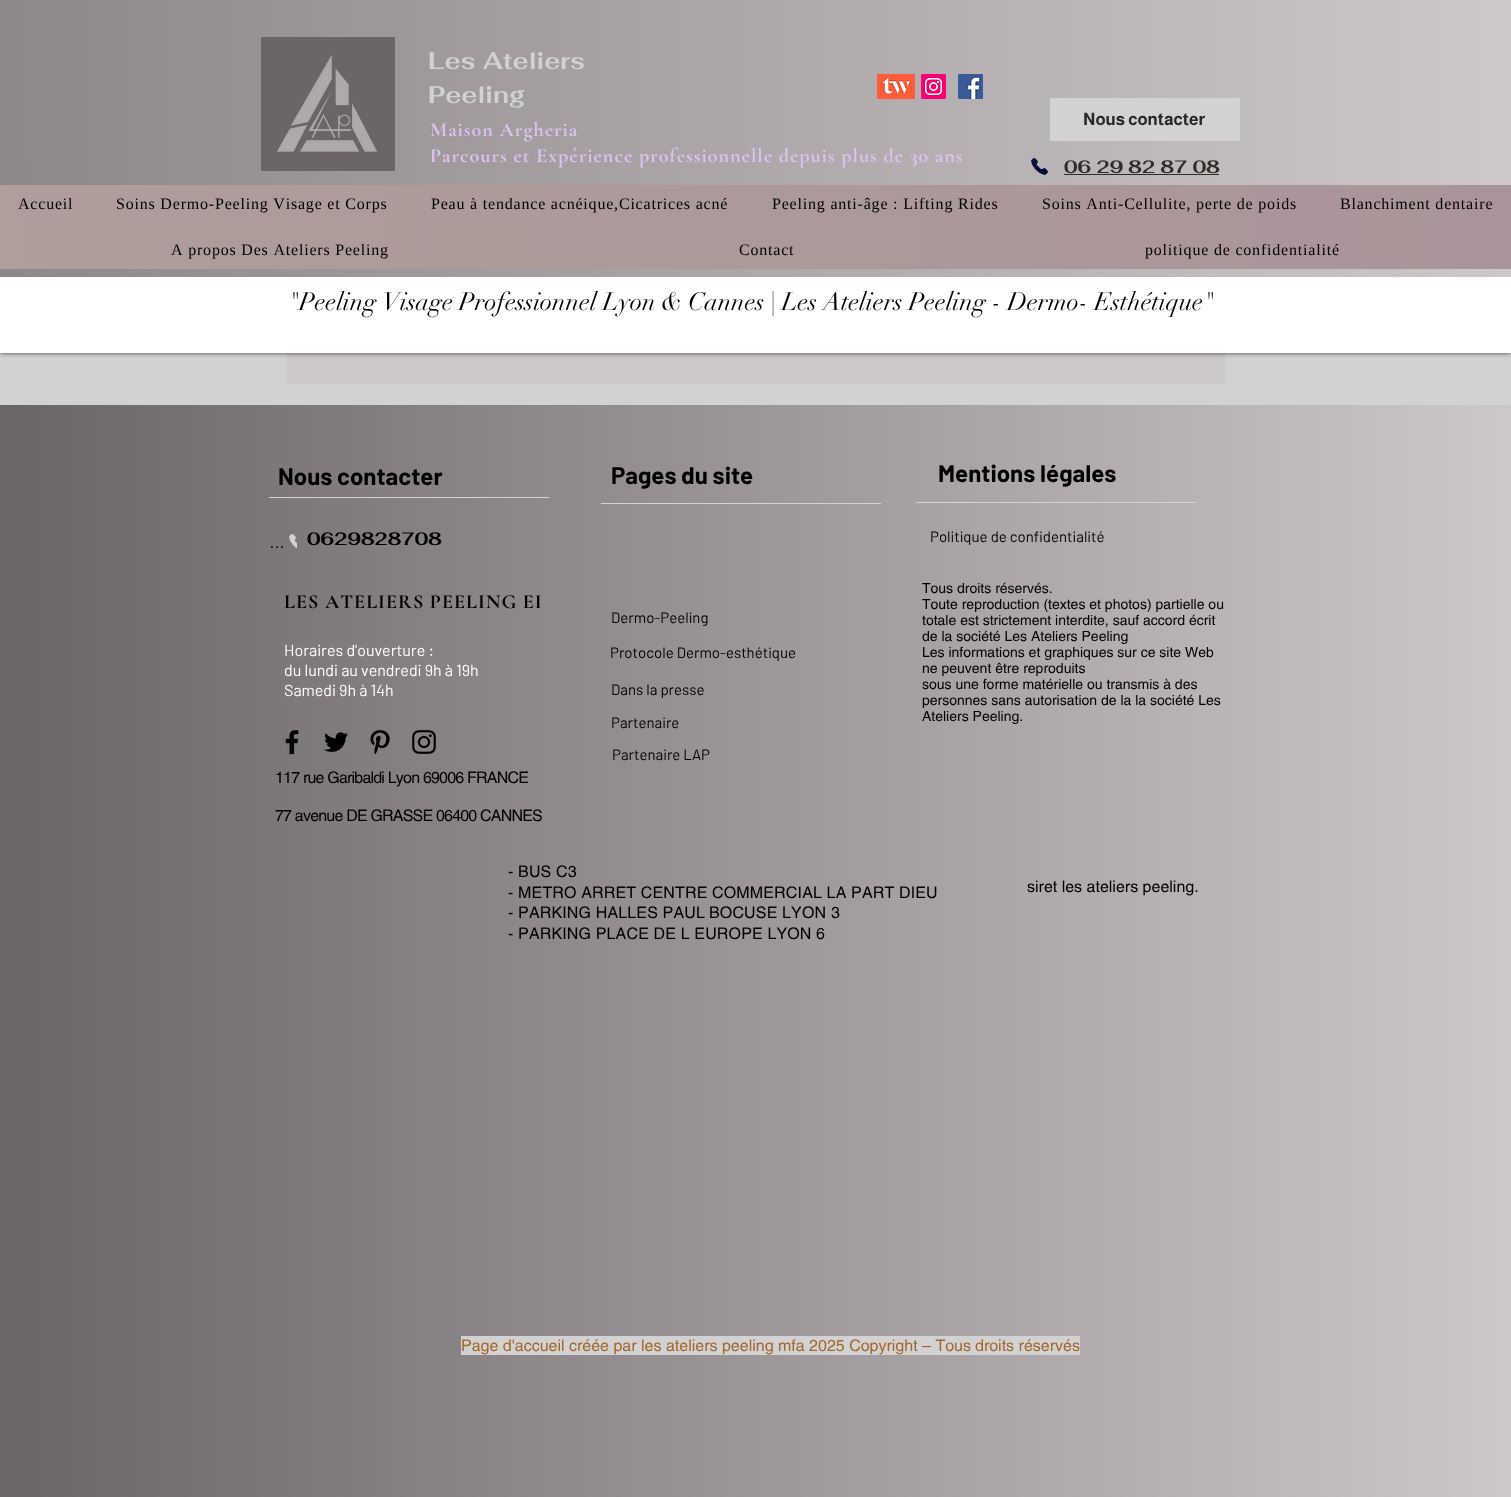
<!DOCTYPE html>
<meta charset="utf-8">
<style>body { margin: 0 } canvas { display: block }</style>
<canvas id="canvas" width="1511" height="1497"></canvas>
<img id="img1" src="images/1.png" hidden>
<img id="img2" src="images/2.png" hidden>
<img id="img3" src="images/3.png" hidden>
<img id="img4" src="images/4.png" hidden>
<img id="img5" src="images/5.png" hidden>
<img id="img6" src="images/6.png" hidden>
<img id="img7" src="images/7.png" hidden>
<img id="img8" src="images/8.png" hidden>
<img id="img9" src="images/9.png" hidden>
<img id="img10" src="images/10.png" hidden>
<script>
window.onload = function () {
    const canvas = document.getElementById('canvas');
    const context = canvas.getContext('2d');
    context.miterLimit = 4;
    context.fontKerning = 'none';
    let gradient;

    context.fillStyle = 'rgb(255, 255, 255)';
    context.fillRect(0, 0, 1511, 1497);
    context.fillStyle = 'rgb(210, 210, 210)';
    context.fillRect(0, 353, 1511, 52);
    context.fillStyle = 'rgb(206, 199, 202)';
    context.fillRect(287, 353, 938, 31);
    context.strokeStyle = 'rgb(209, 207, 208)';
    context.strokeRect(286.5, 120.5, 939, 264);
    context.fillStyle = 'rgba(0, 0, 0, 0.7)';
    context.filter = 'blur(2.5px)';
    context.beginPath();
    context.rect(0, 0, 1511, 353);
    context.fill();
    context.filter = 'none';
    context.fillStyle = 'rgb(255, 255, 255)';
    context.fillRect(0, 277, 1511, 76);
    gradient = context.createLinearGradient(-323, 139, 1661, 138);
    gradient.addColorStop(0, 'rgb(127, 121, 123)');
    gradient.addColorStop(1, 'rgb(212, 206, 209)');
    context.fillStyle = gradient;
    context.fillRect(0, 0, 1511, 277);
    context.fillStyle = 'rgb(108, 101, 103)';
    context.fillRect(261, 37, 134, 134);
    context.drawImage(document.getElementById('img1'), 277, 55, 100, 97);
    context.drawImage(document.getElementById('img2'), 877, 74, 38, 25);
    context.drawImage(document.getElementById('img3'), 921, 74, 25, 25);
    context.drawImage(document.getElementById('img4'), 958, 74, 25, 25);
    context.fillStyle = 'rgb(210, 210, 210)';
    context.fillRect(1050, 98, 190, 43);
    context.drawImage(document.getElementById('img5'), 1031, 158, 17, 17);
    context.fillStyle = 'rgb(50, 44, 40)';
    context.fillRect(1064, 174, 155, 1);
    gradient = context.createLinearGradient(0, 227, 1511, 227);
    gradient.addColorStop(0, 'rgb(243, 224, 247)');
    gradient.addColorStop(1, 'rgb(222, 192, 241)');
    context.fillStyle = gradient;
    context.fillRect(0, 185, 1511, 84);
    context.fillStyle = 'rgba(150, 133, 120, 0.73)';
    context.fillRect(0, 185, 1511, 84);
    gradient = context.createLinearGradient(0, -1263, 1511, -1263);
    gradient.addColorStop(0, 'rgb(108, 101, 103)');
    gradient.addColorStop(1, 'rgb(206, 199, 202)');
    context.fillStyle = gradient;
    context.fillRect(0, 405, 1511, 10);
    gradient = context.createLinearGradient(0, 956, 1511, 956);
    gradient.addColorStop(0, 'rgb(108, 101, 103)');
    gradient.addColorStop(1, 'rgb(206, 199, 202)');
    context.fillStyle = gradient;
    context.fillRect(0, 415, 1511, 1082);
    context.fillStyle = 'rgb(210, 210, 210)';
    context.fillRect(269, 497, 280, 1);
    context.fillRect(916, 502, 280, 1);
    context.fillRect(601, 503, 280, 1);
    context.drawImage(document.getElementById('img6'), 289, 534, 8, 15);
    context.drawImage(document.getElementById('img7'), 285, 730, 14, 25);
    context.drawImage(document.getElementById('img8'), 324, 732, 25, 20);
    context.drawImage(document.getElementById('img9'), 370, 729, 20, 25);
    context.drawImage(document.getElementById('img10'), 412, 730, 24, 24);
    context.fillRect(461, 1336, 619, 19);
    context.font = 'bold 24px Fahkwang';
    context.fillText('Les Ateliers', 428, 69);
    context.fillText('Peeling', 428, 103);
    context.font = 'bold 17px Almarai';
    context.fillStyle = 'rgb(40, 38, 38)';
    context.fillText('Nous contacter', 1083, 125);
    context.letterSpacing = '1px';
    context.font = 'bold 20px Cormorant Garamond';
    context.fillStyle = 'rgb(222, 192, 241)';
    context.fillText('Maison Argheria', 430, 136);
    context.fillText('Parcours et Expérience professionnelle depuis plus de 30 ans', 430, 162);
    context.letterSpacing = '0px';
    context.font = 'bold 18px Fahkwang';
    context.fillStyle = 'rgb(50, 44, 40)';
    context.fillText('06 29 82 87 08', 1064, 173);
    context.letterSpacing = '0.8px';
    context.font = '16px Liberation Serif';
    context.fillStyle = 'rgb(0, 0, 0)';
    context.fillText('Accueil', 18, 209);
    context.fillText('Soins Dermo-Peeling Visage et Corps', 116, 209);
    context.fillText('Peau à tendance acnéique,Cicatrices acné', 431, 209);
    context.fillText('Peeling anti-âge : Lifting Rides', 772, 209);
    context.fillText('Soins Anti-Cellulite, perte de poids', 1042, 209);
    context.fillText('Blanchiment dentaire', 1340, 209);
    context.fillText('A propos Des Ateliers Peeling', 171, 255);
    context.fillText('Contact', 739, 255);
    context.fillText('politique de confidentialité', 1145, 255);
    context.letterSpacing = '0px';
    context.font = '25px didot';
    context.fillText('"Peeling Visage Professionnel Lyon', 288, 310);
    context.fillText('& Cannes | Les Ateliers Peeling - Dermo- Esthétique"', 661, 310);
    context.font = 'bold 24px Barlow';
    context.fillText('Nous contacter', 278, 485);
    context.fillText('Pages du site', 611, 484);
    context.fillText('Mentions légales', 938, 482);
    context.font = 'bold 18px Fahkwang';
    context.fillText('0629828708', 307, 545);
    context.font = '16px Liberation Sans';
    context.fillText('…', 269, 548);
    context.font = '15px Barlow';
    context.fillText('Politique de confidentialité', 930, 542);
    context.letterSpacing = '1px';
    context.font = 'bold 20px Cormorant Garamond';
    context.fillText('LES ATELIERS PEELING EI', 284, 608);
    context.letterSpacing = '0px';
    context.font = '14px helvetica';
    context.fillText('Tous droits réservés.', 922, 593);
    context.fillText('Toute reproduction (textes et photos) partielle ou', 922, 609);
    context.fillText('totale est strictement interdite, sauf accord écrit', 922, 625);
    context.fillText('de la société Les Ateliers Peeling', 922, 641);
    context.fillText('Les informations et graphiques sur ce site Web', 922, 657);
    context.fillText('ne peuvent être reproduits', 922, 673);
    context.fillText('sous une forme matérielle ou transmis à des', 922, 689);
    context.fillText('personnes sans autorisation de la la société Les', 922, 705);
    context.fillText('Ateliers Peeling.', 922, 721);
    context.font = '15px Barlow';
    context.fillText('Dermo-Peeling', 611, 623);
    context.font = '16px Barlow';
    context.fillStyle = 'rgb(255, 255, 255)';
    context.fillText('Horaires d\'ouverture :', 284, 656);
    context.fillText('du lundi au vendredi 9h à 19h', 284, 676);
    context.fillText('Samedi 9h à 14h', 284, 696);
    context.font = '15px Barlow';
    context.fillStyle = 'rgb(0, 0, 0)';
    context.fillText('Protocole Dermo-esthétique', 610, 658);
    context.fillText('Dans la presse', 611, 695);
    context.fillText('Partenaire', 611, 728);
    context.fillText('Partenaire LAP', 612, 760);
    context.letterSpacing = '-0.8px';
    context.font = '16px helvetica';
    context.fillText('117 rue Garibaldi Lyon 69006 FRANCE', 275, 783);
    context.fillText('77 avenue DE GRASSE 06400 CANNES', 275, 821);
    context.letterSpacing = '0.15px';
    context.fillText('- BUS C3', 508, 877);
    context.fillText('- METRO ARRET CENTRE COMMERCIAL LA PART DIEU', 508, 898);
    context.fillText('- PARKING HALLES PAUL', 508, 918);
    context.fillText('BOCUSE LYON', 709, 918);
    context.fillText('3', 831, 918);
    context.fillText('- PARKING PLACE DE L EUROPE LYON', 508, 939);
    context.fillText('6', 816, 939);
    context.letterSpacing = '0px';
    context.fillText('siret les ateliers peeling.', 1027, 892);
    context.fillStyle = 'rgb(162, 103, 45)';
    context.fillText('Page d\'accueil créée par les ateliers peeling mfa 2025 Copyright – Tous', 461, 1351);
    context.fillText('droits réservés', 975, 1351);
};
</script>
